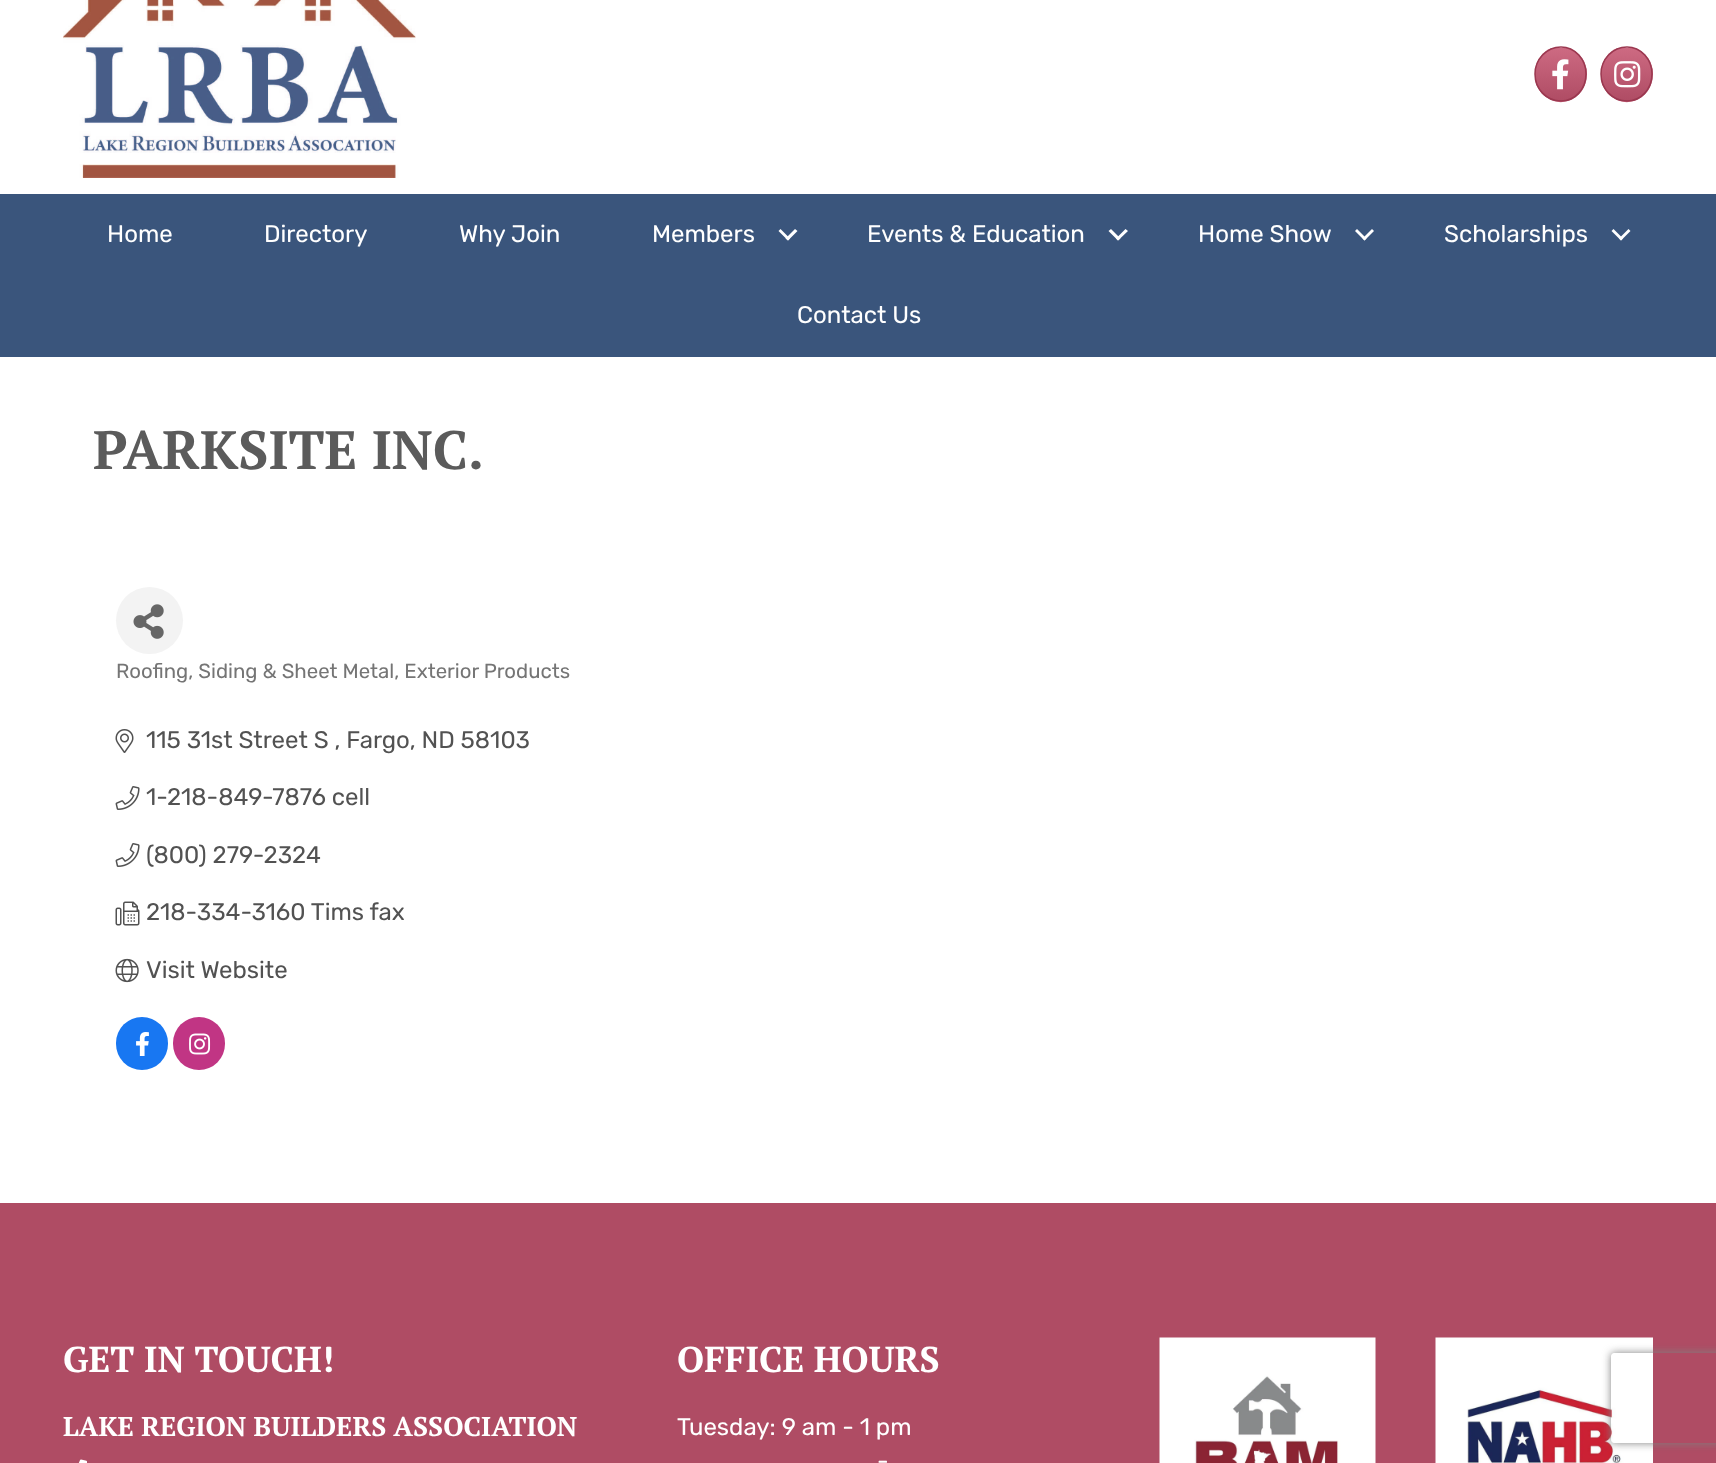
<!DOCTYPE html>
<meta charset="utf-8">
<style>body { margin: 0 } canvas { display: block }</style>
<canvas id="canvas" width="1716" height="1463"></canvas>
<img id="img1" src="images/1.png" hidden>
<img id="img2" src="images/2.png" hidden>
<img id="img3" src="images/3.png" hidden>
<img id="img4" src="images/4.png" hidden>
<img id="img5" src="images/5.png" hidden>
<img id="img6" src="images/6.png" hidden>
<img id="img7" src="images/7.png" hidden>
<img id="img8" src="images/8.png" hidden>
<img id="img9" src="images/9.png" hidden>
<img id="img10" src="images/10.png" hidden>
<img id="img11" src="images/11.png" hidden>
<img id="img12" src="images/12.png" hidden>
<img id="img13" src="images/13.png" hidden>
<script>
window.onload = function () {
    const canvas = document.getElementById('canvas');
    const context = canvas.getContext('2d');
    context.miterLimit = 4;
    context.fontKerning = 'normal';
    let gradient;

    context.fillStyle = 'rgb(255, 255, 255)';
    context.fillRect(0, 0, 1716, 1463);
    context.drawImage(document.getElementById('img1'), 63, 0, 353, 178);
    gradient = context.createLinearGradient(1561, 48, 1561, 101);
    gradient.addColorStop(0, 'rgb(205, 106, 130)');
    gradient.addColorStop(1, 'rgb(175, 76, 100)');
    context.fillStyle = gradient;
    context.beginPath();
    context.moveTo(1535, 69);
    context.bezierCurveTo(1537, 59, 1543, 51, 1552, 48);
    context.lineTo(1569, 48);
    context.bezierCurveTo(1580, 52, 1587, 62, 1587, 74);
    context.bezierCurveTo(1587, 87, 1579, 98, 1568, 101);
    context.lineTo(1554, 101);
    context.bezierCurveTo(1544, 98, 1537, 90, 1535, 80);
    context.closePath();
    context.fill();
    gradient = context.createLinearGradient(1561, 101, 1561, 153);
    gradient.addColorStop(0, 'rgb(205, 106, 130)');
    gradient.addColorStop(1, 'rgb(175, 76, 100)');
    context.fillStyle = gradient;
    context.beginPath();
    context.moveTo(1568, 101);
    context.bezierCurveTo(1563, 102.5, 1558.5, 102.5, 1553.5, 101);
    context.closePath();
    context.fill();
    context.beginPath();
    context.moveTo(1561, 47);
    context.bezierCurveTo(1575, 47, 1586, 59.5, 1586, 74);
    context.bezierCurveTo(1586, 89, 1575, 101, 1561, 101);
    context.bezierCurveTo(1546.5, 101, 1535, 89, 1535, 74);
    context.bezierCurveTo(1535, 59.5, 1546.5, 47, 1561, 47);
    context.closePath();
    context.strokeStyle = 'rgb(155, 56, 80)';
    context.lineWidth = 1.5;
    context.stroke();
    context.drawImage(document.getElementById('img2'), 1552, 59, 17, 31);
    gradient = context.createLinearGradient(1627, 48, 1627, 101);
    gradient.addColorStop(0, 'rgb(205, 106, 130)');
    gradient.addColorStop(1, 'rgb(175, 76, 100)');
    context.fillStyle = gradient;
    context.beginPath();
    context.moveTo(1601, 69);
    context.bezierCurveTo(1603, 59, 1609, 51, 1618, 48);
    context.lineTo(1635, 48);
    context.bezierCurveTo(1646, 52, 1653, 62, 1653, 74);
    context.bezierCurveTo(1653, 87, 1645, 98, 1634, 101);
    context.lineTo(1620, 101);
    context.bezierCurveTo(1610, 98, 1603, 90, 1601, 80);
    context.closePath();
    context.fill();
    gradient = context.createLinearGradient(1627, 101, 1627, 153);
    gradient.addColorStop(0, 'rgb(205, 106, 130)');
    gradient.addColorStop(1, 'rgb(175, 76, 100)');
    context.fillStyle = gradient;
    context.beginPath();
    context.moveTo(1634, 101);
    context.bezierCurveTo(1629, 102.5, 1624.5, 102.5, 1619.5, 101);
    context.closePath();
    context.fill();
    context.beginPath();
    context.moveTo(1627, 47);
    context.bezierCurveTo(1641, 47, 1652, 59.5, 1652, 74);
    context.bezierCurveTo(1652, 89, 1641, 101, 1627, 101);
    context.bezierCurveTo(1612.5, 101, 1601, 89, 1601, 74);
    context.bezierCurveTo(1601, 59.5, 1612.5, 47, 1627, 47);
    context.closePath();
    context.stroke();
    context.drawImage(document.getElementById('img3'), 1614, 61, 27, 27);
    context.fillStyle = 'rgb(58, 85, 124)';
    context.fillRect(0, 194, 1716, 163);
    context.fillStyle = 'rgb(255, 255, 255)';
    context.beginPath();
    context.moveTo(795, 229);
    context.lineTo(797.5, 231);
    context.lineTo(788, 240.5);
    context.lineTo(785.5, 238.5);
    context.closePath();
    context.fill();
    context.beginPath();
    context.moveTo(780.5, 229);
    context.lineTo(790, 238.5);
    context.lineTo(788, 240.5);
    context.lineTo(778.5, 231);
    context.closePath();
    context.fill();
    context.beginPath();
    context.moveTo(1125.5, 229);
    context.lineTo(1128, 231);
    context.lineTo(1118, 240.5);
    context.lineTo(1116, 238.5);
    context.closePath();
    context.fill();
    context.beginPath();
    context.moveTo(1111, 229);
    context.lineTo(1120.5, 238.5);
    context.lineTo(1118, 240.5);
    context.lineTo(1108.5, 231);
    context.closePath();
    context.fill();
    context.beginPath();
    context.moveTo(1372, 229);
    context.lineTo(1374, 231);
    context.lineTo(1364.5, 240.5);
    context.lineTo(1362.5, 238.5);
    context.closePath();
    context.fill();
    context.beginPath();
    context.moveTo(1357, 229);
    context.lineTo(1366.5, 238.5);
    context.lineTo(1364.5, 240.5);
    context.lineTo(1355, 231);
    context.closePath();
    context.fill();
    context.beginPath();
    context.moveTo(1628.5, 229);
    context.lineTo(1630.5, 231);
    context.lineTo(1621, 240.5);
    context.lineTo(1619, 238.5);
    context.closePath();
    context.fill();
    context.beginPath();
    context.moveTo(1613.5, 229);
    context.lineTo(1623, 238.5);
    context.lineTo(1621, 240.5);
    context.lineTo(1611.5, 231);
    context.closePath();
    context.fill();
    context.fillStyle = 'rgb(243, 243, 243)';
    context.beginPath();
    context.arc(149.5, 620.5, 33.5, 0, 2 * Math.PI);
    context.fill();
    context.drawImage(document.getElementById('img4'), 133, 604, 31, 35);
    context.drawImage(document.getElementById('img5'), 115, 729, 19, 24);
    context.drawImage(document.getElementById('img6'), 115, 786, 25, 24);
    context.drawImage(document.getElementById('img6'), 115, 843, 25, 24);
    context.drawImage(document.getElementById('img7'), 115, 901, 25, 25);
    context.drawImage(document.getElementById('img8'), 115, 958, 24, 25);
    context.fillStyle = 'rgb(24, 119, 242)';
    context.beginPath();
    context.roundRect(116, 1017, 52, 53, 26);
    context.fill();
    context.drawImage(document.getElementById('img9'), 136, 1032, 13, 24);
    context.fillStyle = 'rgb(193, 53, 132)';
    context.beginPath();
    context.roundRect(173, 1017, 52, 53, 26);
    context.fill();
    context.drawImage(document.getElementById('img10'), 189, 1033, 22, 22);
    context.fillStyle = 'rgb(175, 76, 100)';
    context.fillRect(0, 1203, 1716, 260);
    context.drawImage(document.getElementById('img11'), 78, 1459, 9, 4);
    context.drawImage(document.getElementById('img12'), 1159, 1337, 217, 126);
    context.drawImage(document.getElementById('img13'), 1435, 1337, 218, 126);
    context.save();
    context.beginPath();
    context.moveTo(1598, 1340);
    context.lineTo(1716, 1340);
    context.lineTo(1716, 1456);
    context.lineTo(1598, 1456);
    context.closePath();
    context.moveTo(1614, 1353);
    context.lineTo(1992, 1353);
    context.bezierCurveTo(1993.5, 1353, 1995, 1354.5, 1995, 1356);
    context.lineTo(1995, 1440);
    context.bezierCurveTo(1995, 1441.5, 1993.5, 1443, 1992, 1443);
    context.lineTo(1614, 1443);
    context.bezierCurveTo(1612.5, 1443, 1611, 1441.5, 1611, 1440);
    context.lineTo(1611, 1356);
    context.bezierCurveTo(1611, 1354.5, 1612.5, 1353, 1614, 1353);
    context.closePath();
    context.clip('evenodd');
    context.fillStyle = 'rgb(128, 128, 128)';
    context.filter = 'blur(4px)';
    context.beginPath();
    context.roundRect(1611, 1353, 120, 90, 3);
    context.fill();
    context.filter = 'none';
    context.restore();
    context.font = '24px Rubik';
    context.fillStyle = 'rgb(255, 255, 255)';
    context.fillText('Home', 107, 242);
    context.fillText('Directory', 264, 242);
    context.fillText('Why Join', 459, 242);
    context.fillText('Members', 652, 242);
    context.fillText('Events & Education', 867, 242);
    context.fillText('Home Show', 1198, 242);
    context.fillText('Scholarships', 1444, 242);
    context.fillText('Contact Us', 797, 323);
    context.font = 'bold 54px PT Serif';
    context.fillStyle = 'rgb(91, 91, 91)';
    context.fillText('PARKSITE INC.', 93, 469);
    context.font = '20.4px Rubik';
    context.fillStyle = 'rgb(117, 117, 117)';
    context.fillText('Roofing, Siding & Sheet Metal, Exterior Products', 116, 678);
    context.font = '24px Rubik';
    context.fillStyle = 'rgb(82, 82, 82)';
    context.fillText('115 31st Street S , Fargo, ND 58103', 146, 748);
    context.fillText('1-218-849-7876 cell', 146, 805);
    context.fillText('(800) 279-2324', 146, 863);
    context.fillText('218-334-3160 Tims fax', 146, 920);
    context.fillText('Visit Website', 146, 978);
    context.font = 'bold 36px PT Serif';
    context.fillStyle = 'rgb(255, 255, 255)';
    context.fillText('GET IN TOUCH!', 63, 1372);
    context.font = 'bold 27px PT Serif';
    context.fillText('LAKE REGION BUILDERS ASSOCIATION', 63, 1436);
    context.font = 'bold 36px PT Serif';
    context.fillText('OFFICE HOURS', 677, 1372);
    context.font = '24px Rubik';
    context.fillText('Tuesday: 9 am - 1 pm', 677, 1435);
    context.fillText('-', 877, 1469);
};
</script>
